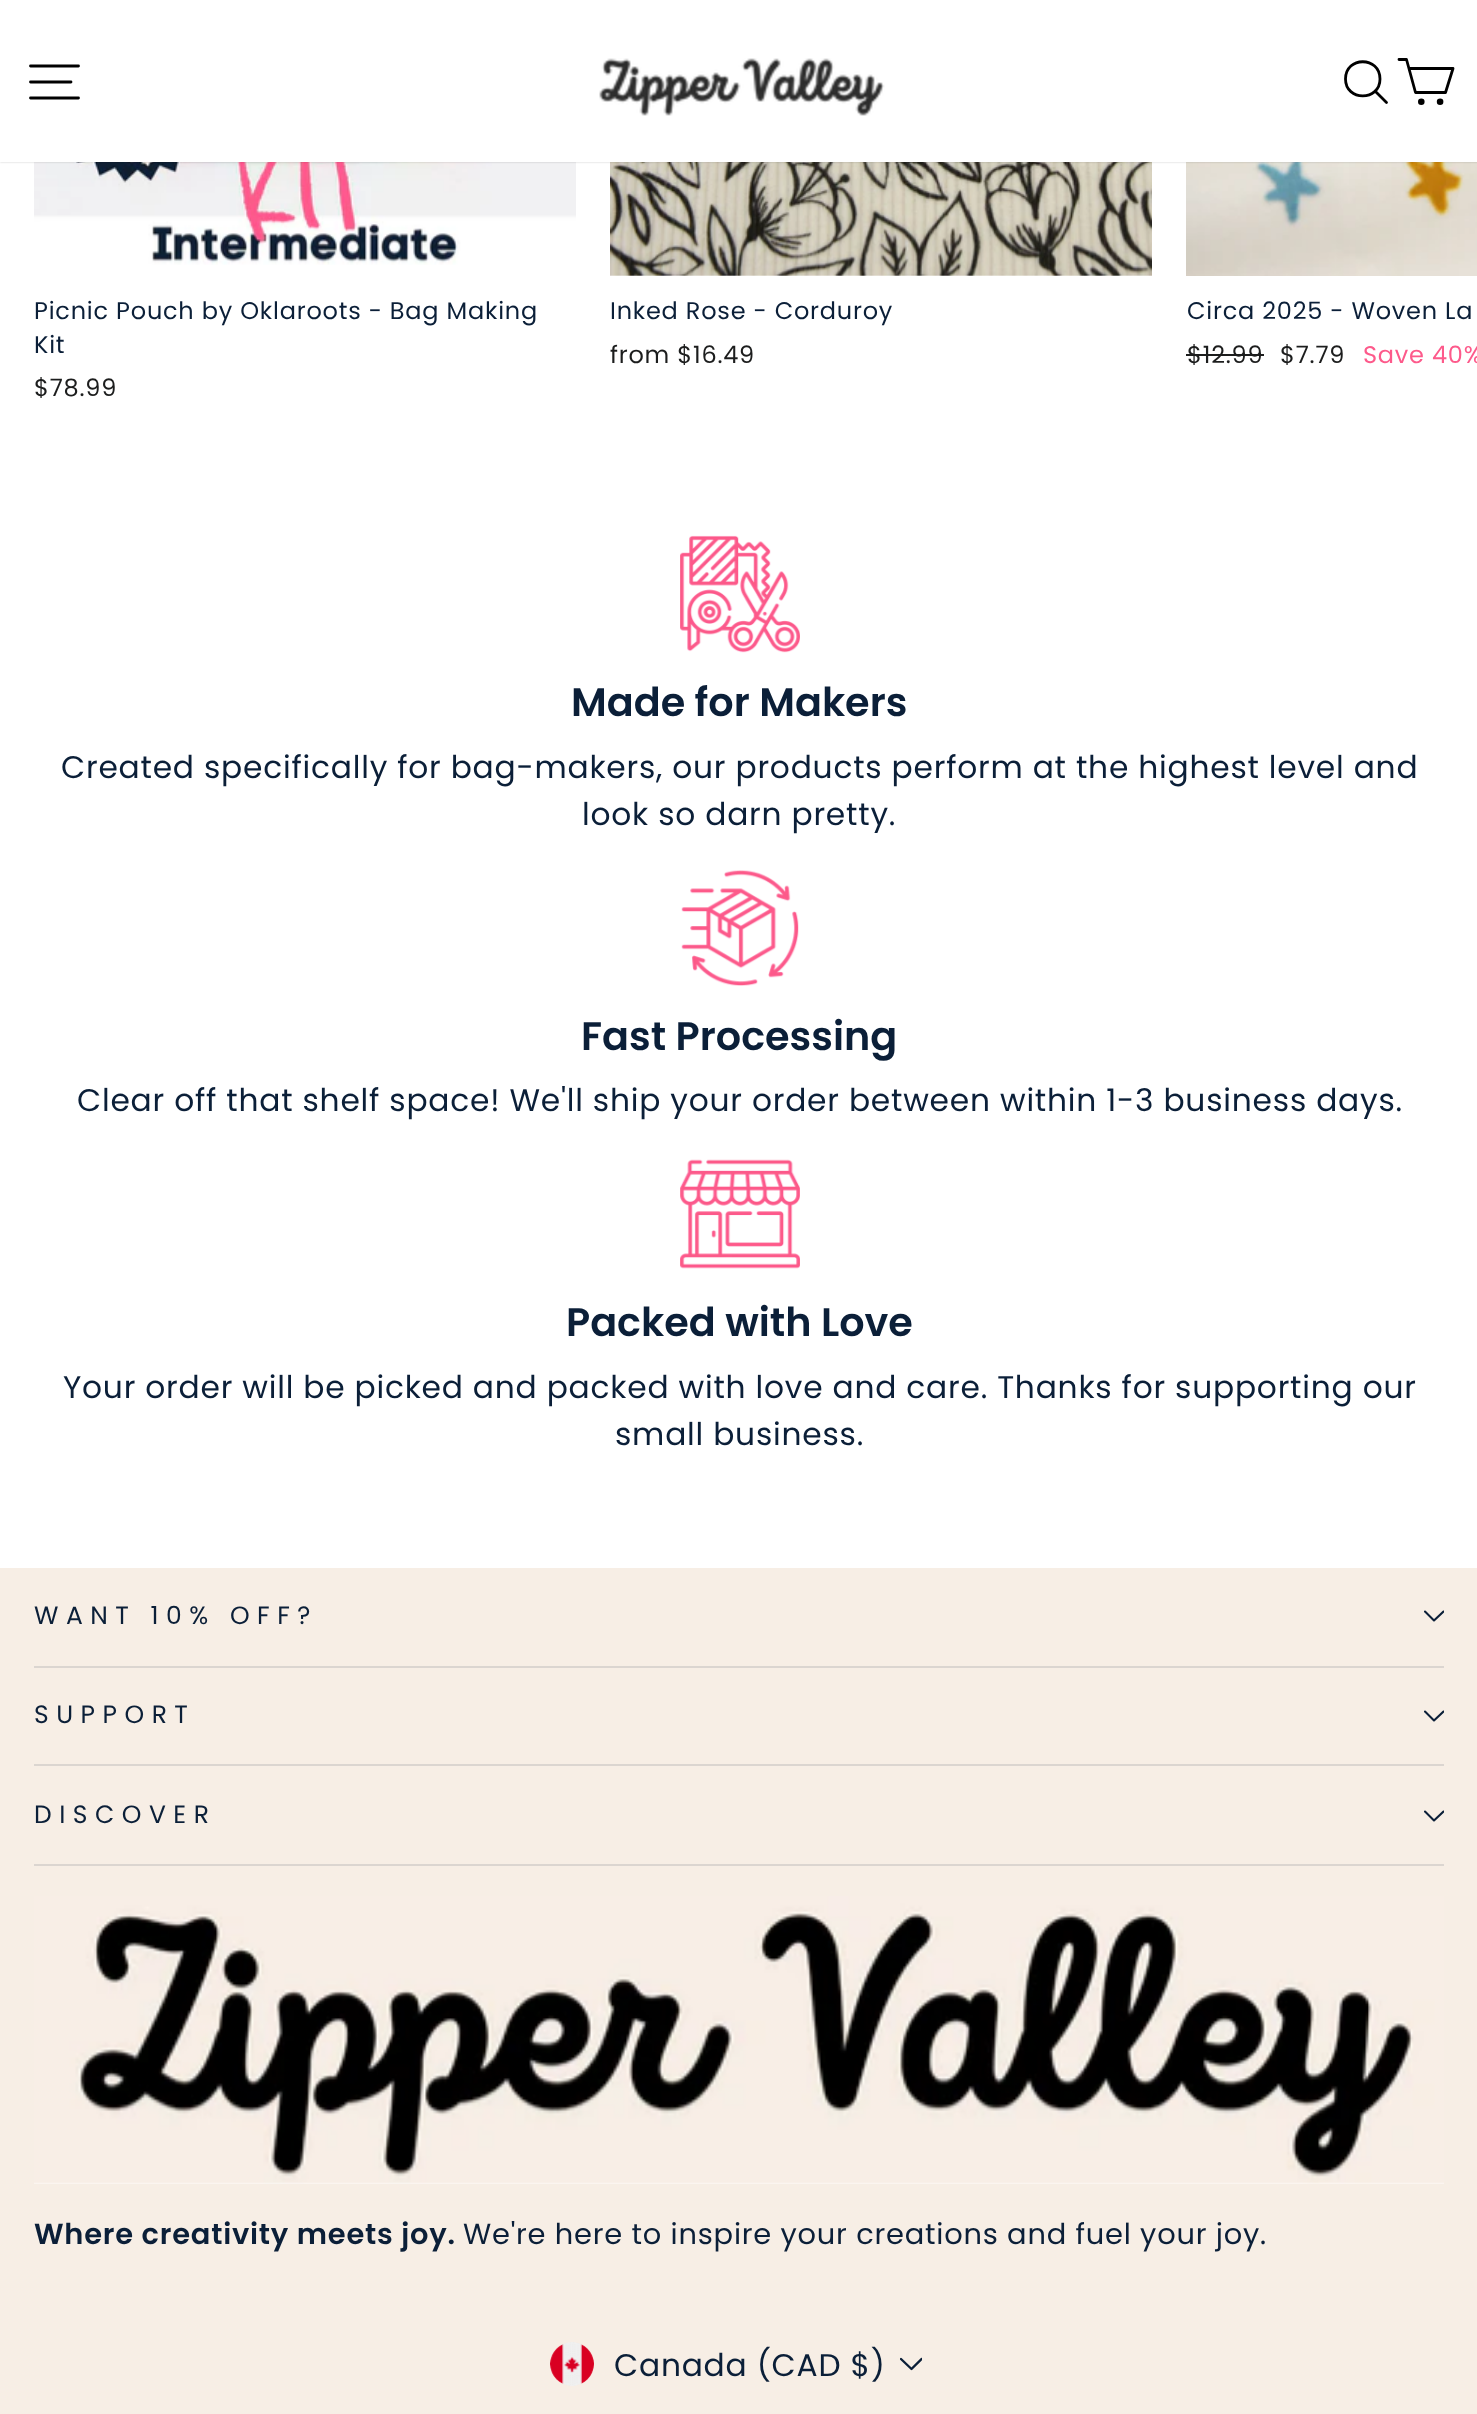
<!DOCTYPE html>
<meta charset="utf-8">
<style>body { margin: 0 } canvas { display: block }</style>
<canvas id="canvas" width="1477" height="2414"></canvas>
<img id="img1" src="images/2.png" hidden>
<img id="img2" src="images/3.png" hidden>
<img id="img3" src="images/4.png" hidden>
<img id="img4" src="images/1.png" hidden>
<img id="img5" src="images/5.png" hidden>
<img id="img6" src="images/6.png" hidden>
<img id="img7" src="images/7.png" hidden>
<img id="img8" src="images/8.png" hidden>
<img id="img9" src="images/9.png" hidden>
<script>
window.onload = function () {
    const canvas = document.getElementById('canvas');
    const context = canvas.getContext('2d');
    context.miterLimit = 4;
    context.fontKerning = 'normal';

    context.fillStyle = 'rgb(255, 255, 255)';
    context.fillRect(0, 0, 1477, 2414);
    context.drawImage(document.getElementById('img1'), 34, 162, 542, 103);
    context.drawImage(document.getElementById('img2'), 610, 162, 542, 114);
    context.drawImage(document.getElementById('img3'), 1186, 162, 291, 114);
    context.fillStyle = 'rgba(0, 0, 0, 0.2)';
    context.filter = 'blur(1px)';
    context.beginPath();
    context.rect(0, 0, 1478, 162);
    context.fill();
    context.filter = 'none';
    context.fillStyle = 'rgb(255, 255, 255)';
    context.fillRect(0, 0, 1477, 162);
    context.beginPath();
    context.moveTo(30.5, 66);
    context.lineTo(78.5, 66);
    context.moveTo(30.5, 82);
    context.lineTo(71, 82);
    context.moveTo(30.5, 98);
    context.lineTo(78.5, 98);
    context.strokeStyle = 'rgb(0, 0, 0)';
    context.lineWidth = 2.8;
    context.lineCap = 'round';
    context.lineJoin = 'round';
    context.stroke();
    context.drawImage(document.getElementById('img4'), 599, 58, 286, 58);
    context.beginPath();
    context.moveTo(1380, 79);
    context.bezierCurveTo(1380, 101.5, 1345.5, 101.5, 1345.5, 79);
    context.bezierCurveTo(1345.5, 56, 1380, 56, 1380, 79);
    context.closePath();
    context.moveTo(1386.5, 102.5);
    context.lineTo(1375.5, 91.5);
    context.stroke();
    context.beginPath();
    context.moveTo(1409, 68.5);
    context.lineTo(1453, 68.5);
    context.lineTo(1445.5, 92.5);
    context.lineTo(1415.5, 92.5);
    context.lineTo(1406.5, 59.5);
    context.lineTo(1399, 59.5);
    context.stroke();
    context.fillStyle = 'rgb(0, 0, 0)';
    context.beginPath();
    context.arc(1421.3, 101.7, 1.9, 0, 2 * Math.PI);
    context.fill();
    context.stroke();
    context.beginPath();
    context.arc(1440.1, 101.7, 1.9, 0, 2 * Math.PI);
    context.fill();
    context.stroke();
    context.fillStyle = 'rgb(28, 29, 29)';
    context.fillRect(1186, 354, 78, 2);
    context.drawImage(document.getElementById('img5'), 680, 535, 120, 118);
    context.drawImage(document.getElementById('img6'), 681, 870, 118, 116);
    context.drawImage(document.getElementById('img7'), 680, 1159, 120, 110);
    context.fillStyle = 'rgb(247, 238, 229)';
    context.fillRect(0, 1568, 1477, 846);
    context.save();
    context.beginPath();
    context.rect(1424, 1606, 20, 20);
    context.clip();
    context.beginPath();
    context.moveTo(1425, 1611.5);
    context.lineTo(1434, 1620.5);
    context.lineTo(1443.5, 1611.5);
    context.strokeStyle = 'rgb(11, 31, 56)';
    context.lineWidth = 2.1;
    context.stroke();
    context.restore();
    context.fillStyle = 'rgb(219, 213, 208)';
    context.fillRect(34, 1666, 1410, 2);
    context.save();
    context.beginPath();
    context.rect(1424, 1706, 20, 20);
    context.clip();
    context.beginPath();
    context.moveTo(1425, 1711.5);
    context.lineTo(1434, 1720.5);
    context.lineTo(1443.5, 1711.5);
    context.strokeStyle = 'rgb(11, 31, 56)';
    context.lineWidth = 2.1;
    context.stroke();
    context.restore();
    context.fillRect(34, 1764, 1410, 2);
    context.save();
    context.beginPath();
    context.rect(1424, 1806, 20, 20);
    context.clip();
    context.beginPath();
    context.moveTo(1425, 1811.5);
    context.lineTo(1434, 1820.5);
    context.lineTo(1443.5, 1811.5);
    context.strokeStyle = 'rgb(11, 31, 56)';
    context.lineWidth = 2.1;
    context.stroke();
    context.restore();
    context.fillRect(34, 1864, 1410, 2);
    context.fillStyle = 'rgb(255, 255, 255)';
    context.fillRect(34, 2182, 1410, 2);
    context.drawImage(document.getElementById('img8'), 34, 1896, 1410, 288);
    context.drawImage(document.getElementById('img9'), 550, 2342, 44, 44);
    context.save();
    context.beginPath();
    context.rect(900, 2354, 22, 22);
    context.clip();
    context.beginPath();
    context.moveTo(901, 2359);
    context.lineTo(911.5, 2369);
    context.lineTo(921.5, 2359);
    context.strokeStyle = 'rgb(11, 31, 56)';
    context.lineWidth = 2.4;
    context.stroke();
    context.restore();
    context.letterSpacing = '0.78px';
    context.font = '24px Poppins';
    context.fillStyle = 'rgb(11, 31, 56)';
    context.fillText('Picnic Pouch by Oklaroots - Bag Making', 34, 319);
    context.fillText('Kit', 34, 353);
    context.fillStyle = 'rgb(28, 29, 29)';
    context.fillText('$78.99', 34, 396);
    context.fillStyle = 'rgb(11, 31, 56)';
    context.fillText('Inked Rose - Corduroy', 610, 319);
    context.fillStyle = 'rgb(28, 29, 29)';
    context.fillText('from $16.49', 610, 363);
    context.fillStyle = 'rgb(11, 31, 56)';
    context.fillText('Circa 2025 - Woven La', 1187, 319);
    context.fillStyle = 'rgb(28, 29, 29)';
    context.fillText('$12.99', 1187, 363);
    context.fillText('$7.79', 1280, 363);
    context.fillStyle = 'rgb(253, 90, 139)';
    context.fillText('Save 40%', 1363, 363);
    context.letterSpacing = '0px';
    context.font = '600 39.75px Poppins';
    context.fillStyle = 'rgb(11, 31, 56)';
    context.fillText('Made for Makers', 571, 716);
    context.letterSpacing = '0.78px';
    context.font = '31.3px Poppins';
    context.fillText('Created specifically for bag-makers, our products perform at the highest level and', 61, 778);
    context.fillText('look so darn pretty.', 582, 825);
    context.letterSpacing = '0px';
    context.font = '600 39.75px Poppins';
    context.fillText('Fast Processing', 581, 1050);
    context.letterSpacing = '0.78px';
    context.font = '31.3px Poppins';
    context.fillText('Clear off that shelf space! We\'ll ship your order between within 1-3 business days.', 77, 1111);
    context.letterSpacing = '0px';
    context.font = '600 39.75px Poppins';
    context.fillText('Packed with Love', 566, 1336);
    context.letterSpacing = '0.78px';
    context.font = '31.3px Poppins';
    context.fillText('Your order will be picked and packed with love and care. Thanks for supporting our', 63, 1398);
    context.fillText('small business.', 615, 1445);
    context.letterSpacing = '7.5px';
    context.font = '25px Poppins';
    context.fillText('WANT 10% OFF?', 34, 1624);
    context.fillText('SUPPORT', 34, 1723);
    context.fillText('DISCOVER', 34, 1823);
    context.letterSpacing = '0.78px';
    context.font = '600 28.9px Poppins';
    context.fillText('Where creativity meets joy.', 34, 2244);
    context.font = '28.9px Poppins';
    context.fillText('We\'re here to inspire your creations and fuel your joy.', 463, 2244);
    context.font = '31.3px Poppins';
    context.fillText('Canada (CAD $)', 614, 2376);
};
</script>
